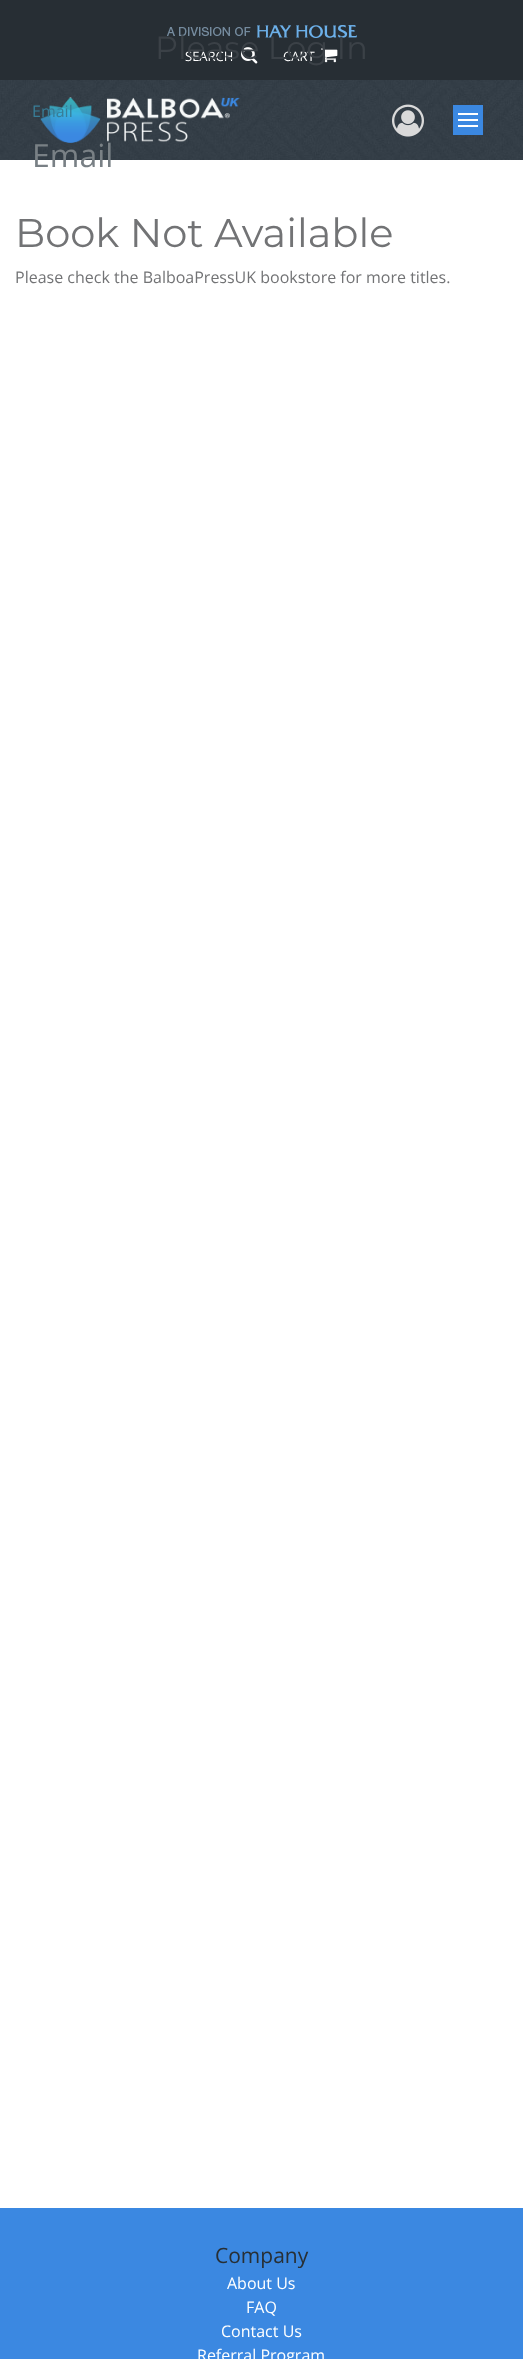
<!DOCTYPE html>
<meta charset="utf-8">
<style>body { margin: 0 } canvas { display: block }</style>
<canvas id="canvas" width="523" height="2359"></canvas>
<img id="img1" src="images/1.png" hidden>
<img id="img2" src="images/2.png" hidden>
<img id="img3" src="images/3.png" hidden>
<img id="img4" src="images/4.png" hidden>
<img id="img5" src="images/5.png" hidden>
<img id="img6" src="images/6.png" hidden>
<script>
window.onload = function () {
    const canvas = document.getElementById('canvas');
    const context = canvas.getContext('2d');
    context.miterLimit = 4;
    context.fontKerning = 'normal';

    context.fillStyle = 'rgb(255, 255, 255)';
    context.fillRect(0, 0, 523, 2359);
    context.fillStyle = 'rgb(39, 46, 52)';
    context.fillRect(0, 0, 523, 80);
    context.drawImage(document.getElementById('img1'), 167, 25, 190, 13);
    context.drawImage(document.getElementById('img2'), 241, 47, 17, 17);
    context.drawImage(document.getElementById('img3'), 321, 48, 17, 15);
    context.drawImage(document.getElementById('img4'), 0, 80, 523, 80);
    context.drawImage(document.getElementById('img5'), 40, 97, 200, 46);
    context.drawImage(document.getElementById('img6'), 392, 104, 32, 33);
    context.fillStyle = 'rgb(59, 136, 225)';
    context.fillRect(453, 105, 30, 30);
    context.fillStyle = 'rgb(255, 255, 255)';
    context.fillRect(458, 119, 20, 2);
    context.fillRect(458, 113, 20, 2);
    context.fillRect(458, 125, 20, 2);
    context.fillStyle = 'rgb(59, 136, 225)';
    context.fillRect(0, 2208, 523, 151);
    context.font = '16px Open Sans';
    context.fillStyle = 'rgb(56, 125, 151)';
    context.fillText('Email', 32, 117);
    context.font = '32px Open Sans';
    context.fillStyle = 'rgb(121, 128, 133)';
    context.fillText('Email', 32, 167);
    context.font = '13px Open Sans';
    context.fillStyle = 'rgb(255, 255, 255)';
    context.fillText('SEARCH', 185, 61);
    context.fillText('CART', 283, 61);
    context.font = '32px Montserrat';
    context.fillStyle = 'rgb(59, 65, 71)';
    context.fillText('Please Log In', 155, 59);
    context.font = '40px Montserrat';
    context.fillStyle = 'rgb(114, 115, 117)';
    context.fillText('Book Not Available', 15, 247);
    context.font = '16px Open Sans';
    context.fillText('Please check the BalboaPressUK bookstore for more titles.', 15, 283);
    context.font = '21px Open Sans';
    context.fillStyle = 'rgb(40, 47, 52)';
    context.fillText('Company', 215, 2263);
    context.font = '16px Open Sans';
    context.fillStyle = 'rgb(255, 255, 255)';
    context.fillText('About Us', 227, 2289);
    context.fillText('FAQ', 246, 2313);
    context.fillText('Contact Us', 221, 2337);
    context.fillText('Referral Program', 197, 2361);
};
</script>
